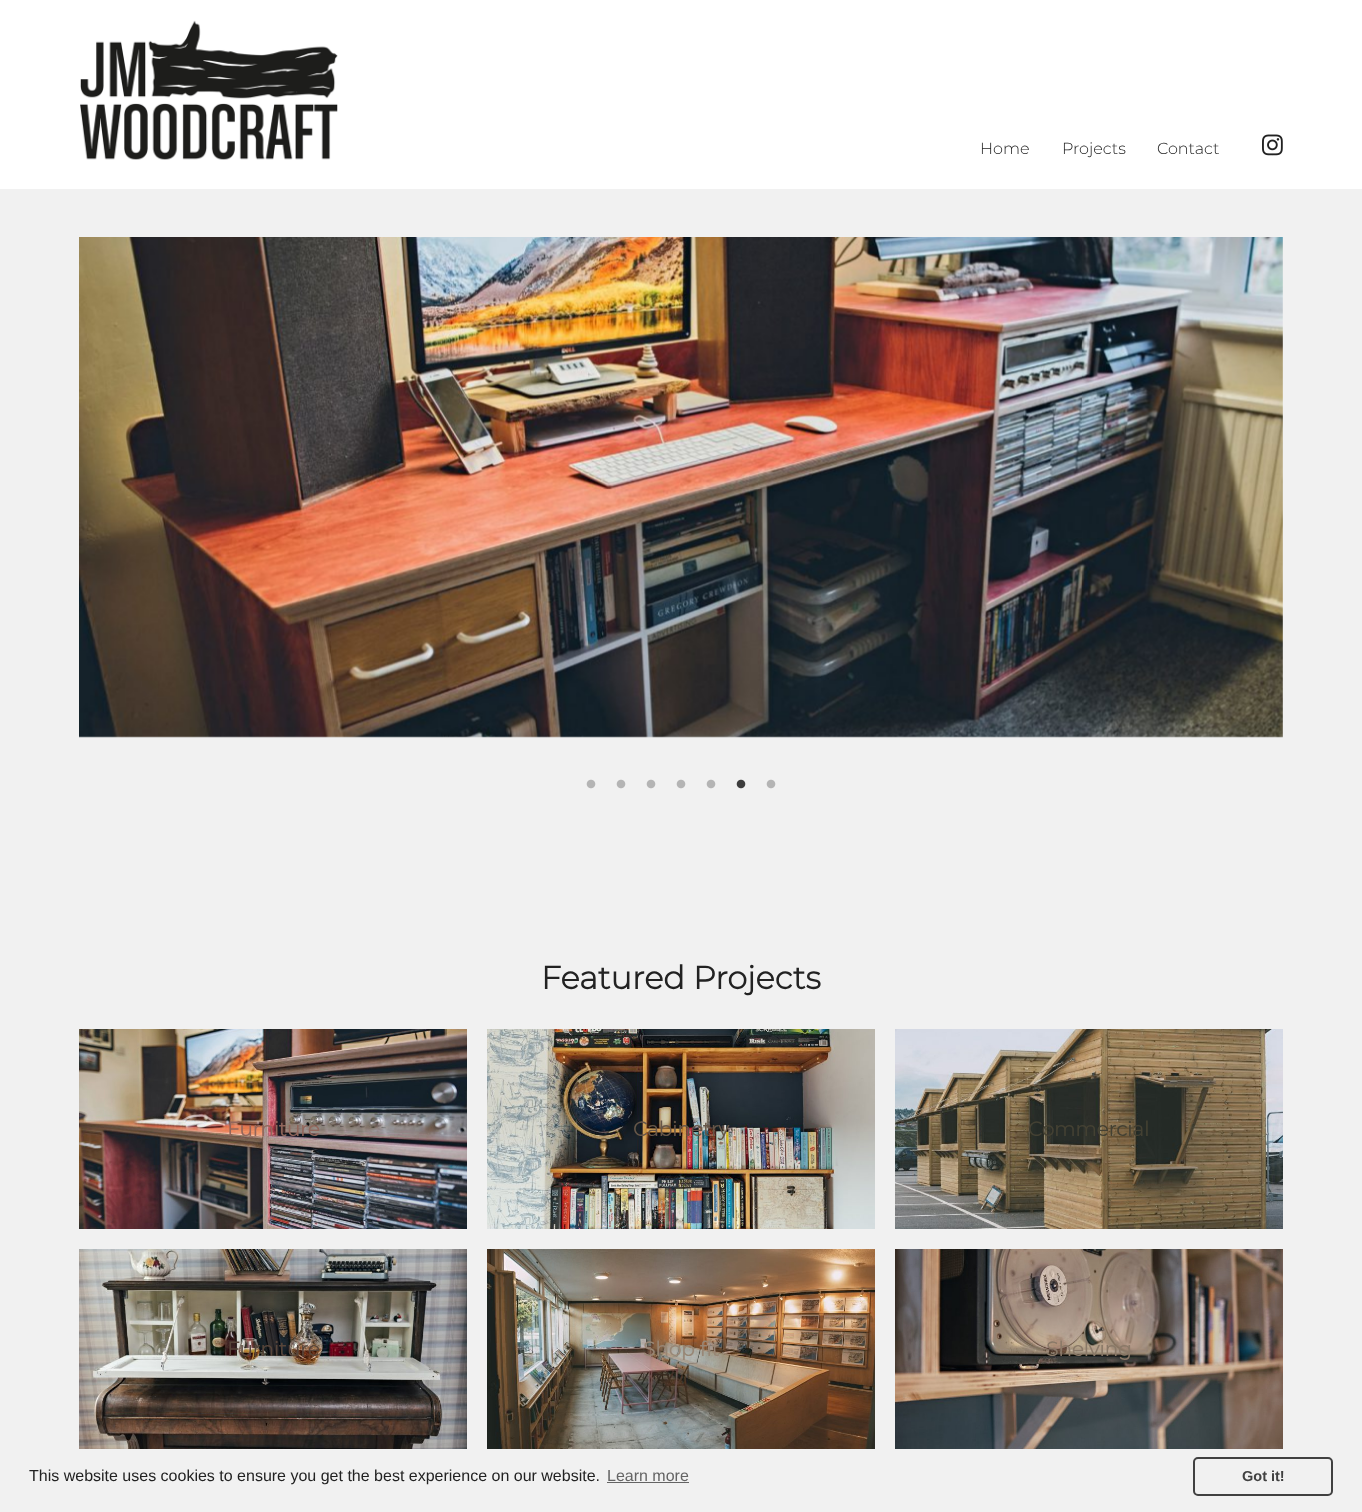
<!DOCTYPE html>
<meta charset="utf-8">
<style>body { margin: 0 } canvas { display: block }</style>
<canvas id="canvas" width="1362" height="1512"></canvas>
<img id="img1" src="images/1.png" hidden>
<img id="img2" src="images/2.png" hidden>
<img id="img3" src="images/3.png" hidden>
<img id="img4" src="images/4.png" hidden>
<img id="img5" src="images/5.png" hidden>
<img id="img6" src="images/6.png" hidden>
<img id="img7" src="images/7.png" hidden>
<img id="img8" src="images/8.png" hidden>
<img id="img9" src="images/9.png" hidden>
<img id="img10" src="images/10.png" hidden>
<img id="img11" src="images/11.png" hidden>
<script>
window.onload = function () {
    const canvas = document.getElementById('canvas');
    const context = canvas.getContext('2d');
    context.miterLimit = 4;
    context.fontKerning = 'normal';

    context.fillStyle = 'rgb(255, 255, 255)';
    context.fillRect(0, 0, 1362, 1512);
    context.drawImage(document.getElementById('img1'), 80, 20, 258, 140);
    context.drawImage(document.getElementById('img2'), 1262, 134, 21, 22);
    context.fillStyle = 'rgb(241, 241, 241)';
    context.fillRect(0, 189, 1362, 1323);
    context.drawImage(document.getElementById('img3'), 79, 237, 1204, 501);
    context.drawImage(document.getElementById('img4'), 586, 779, 10, 10);
    context.drawImage(document.getElementById('img4'), 616, 779, 10, 10);
    context.drawImage(document.getElementById('img4'), 646, 779, 10, 10);
    context.drawImage(document.getElementById('img4'), 676, 779, 10, 10);
    context.drawImage(document.getElementById('img4'), 706, 779, 10, 10);
    context.drawImage(document.getElementById('img5'), 736, 779, 10, 10);
    context.drawImage(document.getElementById('img4'), 766, 779, 10, 10);
    context.drawImage(document.getElementById('img6'), 79, 1029, 388, 200);
    context.drawImage(document.getElementById('img7'), 487, 1029, 388, 200);
    context.drawImage(document.getElementById('img8'), 895, 1029, 388, 200);
    context.drawImage(document.getElementById('img9'), 79, 1249, 388, 200);
    context.drawImage(document.getElementById('img10'), 487, 1249, 388, 200);
    context.drawImage(document.getElementById('img11'), 895, 1249, 388, 200);
    context.fillStyle = 'rgb(100, 100, 100)';
    context.fillRect(607, 1482, 82, 1);
    context.beginPath();
    context.roundRect(1194, 1458, 138, 37, 4);
    context.strokeStyle = 'rgb(65, 65, 65)';
    context.lineWidth = 2;
    context.stroke();
    context.font = '100 16px Montserrat';
    context.fillStyle = 'rgb(34, 34, 34)';
    context.fillText('Home', 980, 154);
    context.fillText('Projects', 1062, 154);
    context.fillText('Contact', 1157, 154);
    context.font = 'bold 32px Montserrat';
    context.fillText('Featured Projects', 541, 989);
    context.font = 'bold 20px Montserrat';
    context.fillStyle = 'rgb(146, 102, 91)';
    context.fillText('Furniture', 227, 1136);
    context.fillStyle = 'rgb(102, 86, 72)';
    context.fillText('Cabinetry', 633, 1136);
    context.fillStyle = 'rgb(68, 65, 51)';
    context.fillText('Commercial', 1028, 1136);
    context.fillStyle = 'rgb(87, 69, 58)';
    context.fillText('Furniture', 227, 1356);
    context.fillStyle = 'rgb(152, 134, 117)';
    context.fillText('Shop fit', 643, 1356);
    context.fillStyle = 'rgb(138, 121, 104)';
    context.fillText('Shelving', 1046, 1356);
    context.font = '16px Liberation Sans';
    context.fillStyle = 'rgb(34, 34, 34)';
    context.fillText('This website uses cookies to ensure you get the best experience on our website.', 29, 1481);
    context.fillStyle = 'rgb(100, 100, 100)';
    context.fillText('Learn more', 607, 1481);
    context.font = 'bold 14.5px Liberation Sans';
    context.fillStyle = 'rgb(65, 65, 65)';
    context.fillText('Got it!', 1242, 1481);
};
</script>
